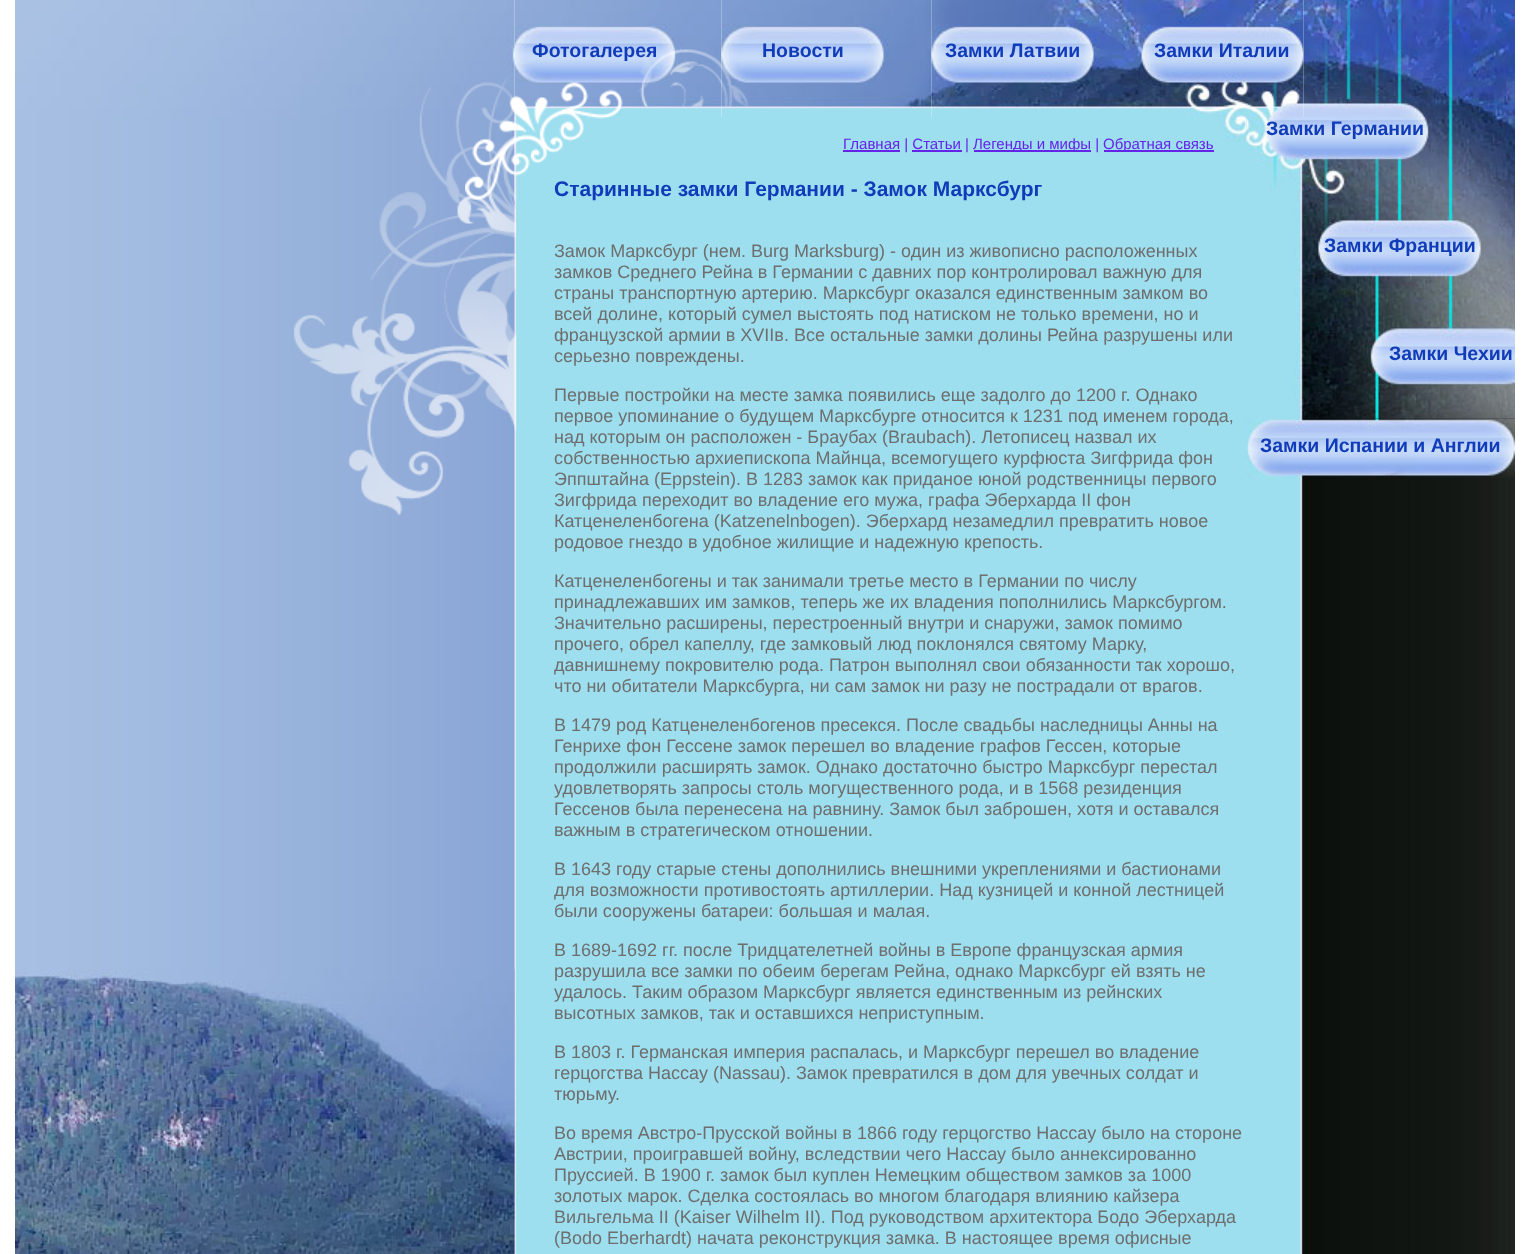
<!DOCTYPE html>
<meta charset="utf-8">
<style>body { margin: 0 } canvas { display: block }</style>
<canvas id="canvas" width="1530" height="1254"></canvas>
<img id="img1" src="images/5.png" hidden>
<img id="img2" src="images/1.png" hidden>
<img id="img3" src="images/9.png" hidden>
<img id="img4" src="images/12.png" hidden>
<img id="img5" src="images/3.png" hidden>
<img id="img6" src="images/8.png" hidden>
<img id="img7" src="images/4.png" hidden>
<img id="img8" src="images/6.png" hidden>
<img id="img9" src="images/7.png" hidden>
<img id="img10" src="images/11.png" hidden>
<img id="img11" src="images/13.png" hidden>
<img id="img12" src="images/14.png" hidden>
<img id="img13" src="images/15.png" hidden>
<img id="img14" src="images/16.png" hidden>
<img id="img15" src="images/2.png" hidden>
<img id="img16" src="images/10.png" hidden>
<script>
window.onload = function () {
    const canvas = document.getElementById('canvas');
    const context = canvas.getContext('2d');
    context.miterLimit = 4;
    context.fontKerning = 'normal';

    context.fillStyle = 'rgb(255, 255, 255)';
    context.fillRect(0, 0, 1530, 1254);
    context.drawImage(document.getElementById('img1'), 514, 0, 208, 117);
    context.drawImage(document.getElementById('img2'), 15, 0, 500, 117);
    context.drawImage(document.getElementById('img3'), 15, 117, 1500, 1137);
    context.drawImage(document.getElementById('img4'), 514, 117, 733, 84);
    context.drawImage(document.getElementById('img5'), 293, 76, 224, 439);
    context.drawImage(document.getElementById('img6'), 1140, 0, 164, 117);
    context.drawImage(document.getElementById('img7'), 1303, 0, 212, 117);
    context.drawImage(document.getElementById('img8'), 721, 0, 211, 117);
    context.drawImage(document.getElementById('img9'), 931, 0, 209, 117);
    context.drawImage(document.getElementById('img10'), 15, 969, 500, 285);
    context.fillStyle = 'rgb(101, 36, 232)';
    context.fillRect(843, 150, 57, 2);
    context.fillRect(974, 150, 117, 2);
    context.fillRect(1104, 150, 110, 2);
    context.fillRect(912, 150, 50, 2);
    context.drawImage(document.getElementById('img11'), 1246, 117, 269, 102);
    context.drawImage(document.getElementById('img12'), 1295, 219, 220, 108);
    context.drawImage(document.getElementById('img13'), 1294, 327, 221, 92);
    context.drawImage(document.getElementById('img14'), 1246, 418, 269, 61);
    context.font = 'bold 19.5px Liberation Sans';
    context.fillStyle = 'rgb(17, 60, 185)';
    context.fillText('Фотогалерея', 532, 57);
    context.drawImage(document.getElementById('img15'), 637, 49, 112, 58);
    context.fillText('Новости', 762, 57);
    context.fillText('Замки Латвии', 945, 57);
    context.fillText('Замки Италии', 1154, 57);
    context.font = '15px Liberation Sans';
    context.fillStyle = 'rgb(101, 36, 232)';
    context.fillText('Главная | Статьи |', 843, 149);
    context.fillText('Легенды и мифы |', 973, 149);
    context.fillText('Обратная связь', 1103, 149);
    context.font = 'bold 21px Liberation Sans';
    context.fillStyle = 'rgb(17, 60, 185)';
    context.fillText('Старинные замки Германии - Замок Марксбург', 554, 196);
    context.drawImage(document.getElementById('img16'), 465, 82, 158, 119);
    context.font = '18px Liberation Sans';
    context.fillStyle = 'rgb(110, 110, 110)';
    context.fillText('Замок Марксбург (нем. Burg Marksburg) - один из живописно расположенных', 554, 257);
    context.fillText('замков Среднего Рейна в Германии с давних пор контролировал важную для', 554, 278);
    context.fillText('страны транспортную артерию. Маркcбург оказался единственным замком во', 554, 299);
    context.fillText('всей долине, который сумел выстоять под натиском не только времени, но и', 554, 320);
    context.fillText('французской армии в XVIIв. Все остальные замки долины Рейна разрушены или', 554, 341);
    context.fillText('серьезно повреждены.', 554, 362);
    context.fillText('Первые постройки на месте замка появились еще задолго до 1200 г. Однако', 554, 401);
    context.fillText('первое упоминание о будущем Марксбурге относится к 1231 под именем города,', 554, 422);
    context.fillText('над которым он расположен - Браубах (Braubach). Летописец назвал их', 554, 443);
    context.fillText('собственностью архиепископа Майнца, всемогущего курфюста Зигфрида фон', 554, 464);
    context.fillText('Эппштайна (Eppstein). В 1283 замок как приданое юной родственницы первого', 554, 485);
    context.fillText('Зигфрида переходит во владение его мужа, графа Эберхарда II фон', 554, 506);
    context.fillText('Катценеленбогена (Katzenelnbogen). Эберхард незамедлил превратить новое', 554, 527);
    context.fillText('родовое гнездо в удобное жилищие и надежную крепость.', 554, 548);
    context.fillText('Катценеленбогены и так занимали третье место в Германии по числу', 554, 587);
    context.fillText('принадлежавших им замков, теперь же их владения пополнились Марксбургом.', 554, 608);
    context.fillText('Значительно расширены, перестроенный внутри и снаружи, замок помимо', 554, 629);
    context.fillText('прочего, обрел капеллу, где замковый люд поклонялся святому Марку,', 554, 650);
    context.fillText('давнишнему покровителю рода. Патрон выполнял свои обязанности так хорошо,', 554, 671);
    context.fillText('что ни обитатели Марксбурга, ни сам замок ни разу не пострадали от врагов.', 554, 692);
    context.fillText('В 1479 род Катценеленбогенов пресекся. После свадьбы наследницы Анны на', 554, 731);
    context.fillText('Генрихе фон Гессене замок перешел во владение графов Гессен, которые', 554, 752);
    context.fillText('продолжили расширять замок. Однако достаточно быстро Марксбург перестал', 554, 773);
    context.fillText('удовлетворять запросы столь могущественного рода, и в 1568 резиденция', 554, 794);
    context.fillText('Гессенов была перенесена на равнину. Замок был заброшен, хотя и оставался', 554, 815);
    context.fillText('важным в стратегическом отношении.', 554, 836);
    context.fillText('В 1643 году старые стены дополнились внешними укреплениями и бастионами', 554, 875);
    context.fillText('для возможности противостоять артиллерии. Над кузницей и конной лестницей', 554, 896);
    context.fillText('были сооружены батареи: большая и малая.', 554, 917);
    context.fillText('В 1689-1692 гг. после Тридцателетней войны в Европе французская армия', 554, 956);
    context.fillText('разрушила все замки по обеим берегам Рейна, однако Марксбург ей взять не', 554, 977);
    context.fillText('удалось. Таким образом Марксбург является единственным из рейнских', 554, 998);
    context.fillText('высотных замков, так и оставшихся неприступным.', 554, 1019);
    context.fillText('В 1803 г. Германская империя распалась, и Марксбург перешел во владение', 554, 1058);
    context.fillText('герцогства Нассау (Nassau). Замок превратился в дом для увечных солдат и', 554, 1079);
    context.fillText('тюрьму.', 554, 1100);
    context.fillText('Во время Австро-Прусской войны в 1866 году герцогство Нассау было на стороне', 554, 1139);
    context.fillText('Австрии, проигравшей войну, вследствии чего Нассау было аннексированно', 554, 1160);
    context.fillText('Пруссией. В 1900 г. замок был куплен Немецким обществом замков за 1000', 554, 1181);
    context.fillText('золотых марок. Сделка состоялась во многом благодаря влиянию кайзера', 554, 1202);
    context.fillText('Вильгельма II (Kaiser Wilhelm II). Под руководством архитектора Бодо Эберхарда', 554, 1223);
    context.fillText('(Bodo Eberhardt) начата реконструкция замка. В настоящее время офисные', 554, 1244);
    context.font = 'bold 19.5px Liberation Sans';
    context.fillStyle = 'rgb(17, 60, 185)';
    context.fillText('Замки Германии', 1266, 135);
    context.fillText('Замки Франции', 1324, 252);
    context.fillText('Замки Чехии', 1389, 360);
    context.fillText('Замки Испании и Англии', 1260, 452);
};
</script>
